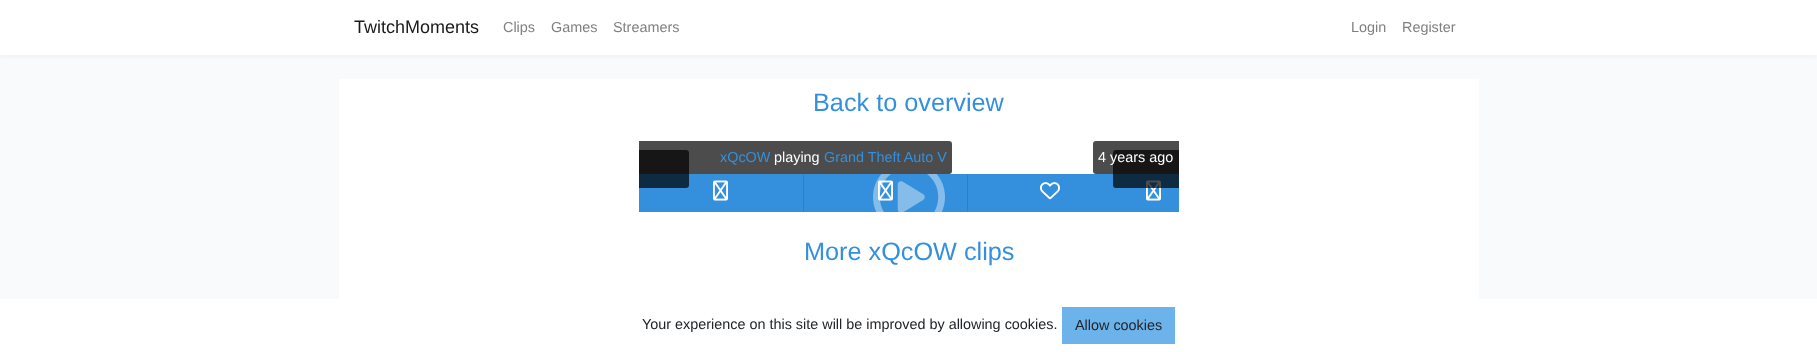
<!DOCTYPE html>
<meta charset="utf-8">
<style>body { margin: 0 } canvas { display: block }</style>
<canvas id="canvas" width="1817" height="352"></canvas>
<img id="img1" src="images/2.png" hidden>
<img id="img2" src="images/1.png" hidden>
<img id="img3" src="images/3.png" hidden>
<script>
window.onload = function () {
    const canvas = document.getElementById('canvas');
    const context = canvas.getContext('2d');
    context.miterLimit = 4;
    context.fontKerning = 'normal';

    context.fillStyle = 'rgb(248, 250, 252)';
    context.fillRect(0, 0, 1817, 352);
    context.fillStyle = 'rgba(0, 0, 0, 0.04)';
    context.filter = 'blur(2px)';
    context.beginPath();
    context.rect(0, 2, 1817, 55);
    context.fill();
    context.filter = 'none';
    context.fillStyle = 'rgb(255, 255, 255)';
    context.fillRect(0, 0, 1817, 55);
    context.fillRect(339, 79, 1140, 220);
    context.fillStyle = 'rgb(52, 144, 220)';
    context.fillRect(639, 174, 540, 38);
    context.fillStyle = 'rgba(0, 0, 0, 0.7)';
    context.beginPath();
    context.roundRect(639, 150, 50, 38, [0, 3, 3, 0]);
    context.fill();
    context.drawImage(document.getElementById('img1'), 1146, 180, 15, 21);
    context.beginPath();
    context.roundRect(1113, 150, 66, 38, [3, 0, 0, 3]);
    context.fill();
    context.beginPath();
    context.roundRect(639, 141, 313, 33, [0, 3, 3, 0]);
    context.fill();
    context.beginPath();
    context.roundRect(1093, 141, 86, 33, [3, 0, 0, 3]);
    context.fill();
    context.fillStyle = 'rgb(46, 126, 193)';
    context.beginPath();
    context.moveTo(968, 174);
    context.lineTo(968, 212);
    context.lineTo(967, 211);
    context.lineTo(967, 175);
    context.closePath();
    context.fill();
    context.fillStyle = 'rgb(52, 144, 220)';
    context.beginPath();
    context.moveTo(968, 212);
    context.lineTo(803, 212);
    context.lineTo(804, 211);
    context.lineTo(967, 211);
    context.closePath();
    context.fill();
    context.drawImage(document.getElementById('img1'), 878, 180, 15, 21);
    context.drawImage(document.getElementById('img2'), 873, 174, 72, 38);
    context.drawImage(document.getElementById('img1'), 713, 180, 15, 21);
    context.fillStyle = 'rgb(46, 126, 193)';
    context.beginPath();
    context.moveTo(803, 212);
    context.lineTo(803, 174);
    context.lineTo(804, 175);
    context.lineTo(804, 211);
    context.closePath();
    context.fill();
    context.drawImage(document.getElementById('img3'), 1040, 182, 20, 18);
    context.fillStyle = 'rgb(255, 255, 255)';
    context.fillRect(0, 299, 1817, 53);
    context.fillStyle = 'rgb(108, 178, 235)';
    context.fillRect(1062, 307, 113, 37);
    context.font = '18px Liberation Sans';
    context.fillStyle = 'rgb(26, 26, 26)';
    context.fillText('TwitchMoments', 354, 33);
    context.font = '14.4px Liberation Sans';
    context.fillStyle = 'rgb(128, 128, 128)';
    context.fillText('Clips', 503, 32);
    context.fillText('Games', 551, 32);
    context.fillText('Streamers', 613, 32);
    context.fillText('Login', 1351, 32);
    context.fillText('Register', 1402, 32);
    context.font = '25.25px Liberation Sans';
    context.fillStyle = 'rgb(52, 144, 220)';
    context.fillText('Back to overview', 813, 111);
    context.font = '14.4px Liberation Sans';
    context.fillText('xQcOW', 720, 162);
    context.fillStyle = 'rgb(255, 255, 255)';
    context.fillText('playing', 774, 162);
    context.fillStyle = 'rgb(52, 144, 220)';
    context.fillText('Grand Theft Auto V', 824, 162);
    context.fillStyle = 'rgb(255, 255, 255)';
    context.fillText('4 years ago', 1098, 162);
    context.font = '25.25px Liberation Sans';
    context.fillStyle = 'rgb(52, 144, 220)';
    context.fillText('More xQcOW clips', 804, 260);
    context.font = '14.4px Liberation Sans';
    context.fillStyle = 'rgb(33, 37, 41)';
    context.fillText('Your experience on this site will be improved by allowing cookies.', 642, 329);
    context.fillText('Allow cookies', 1075, 330);
};
</script>
